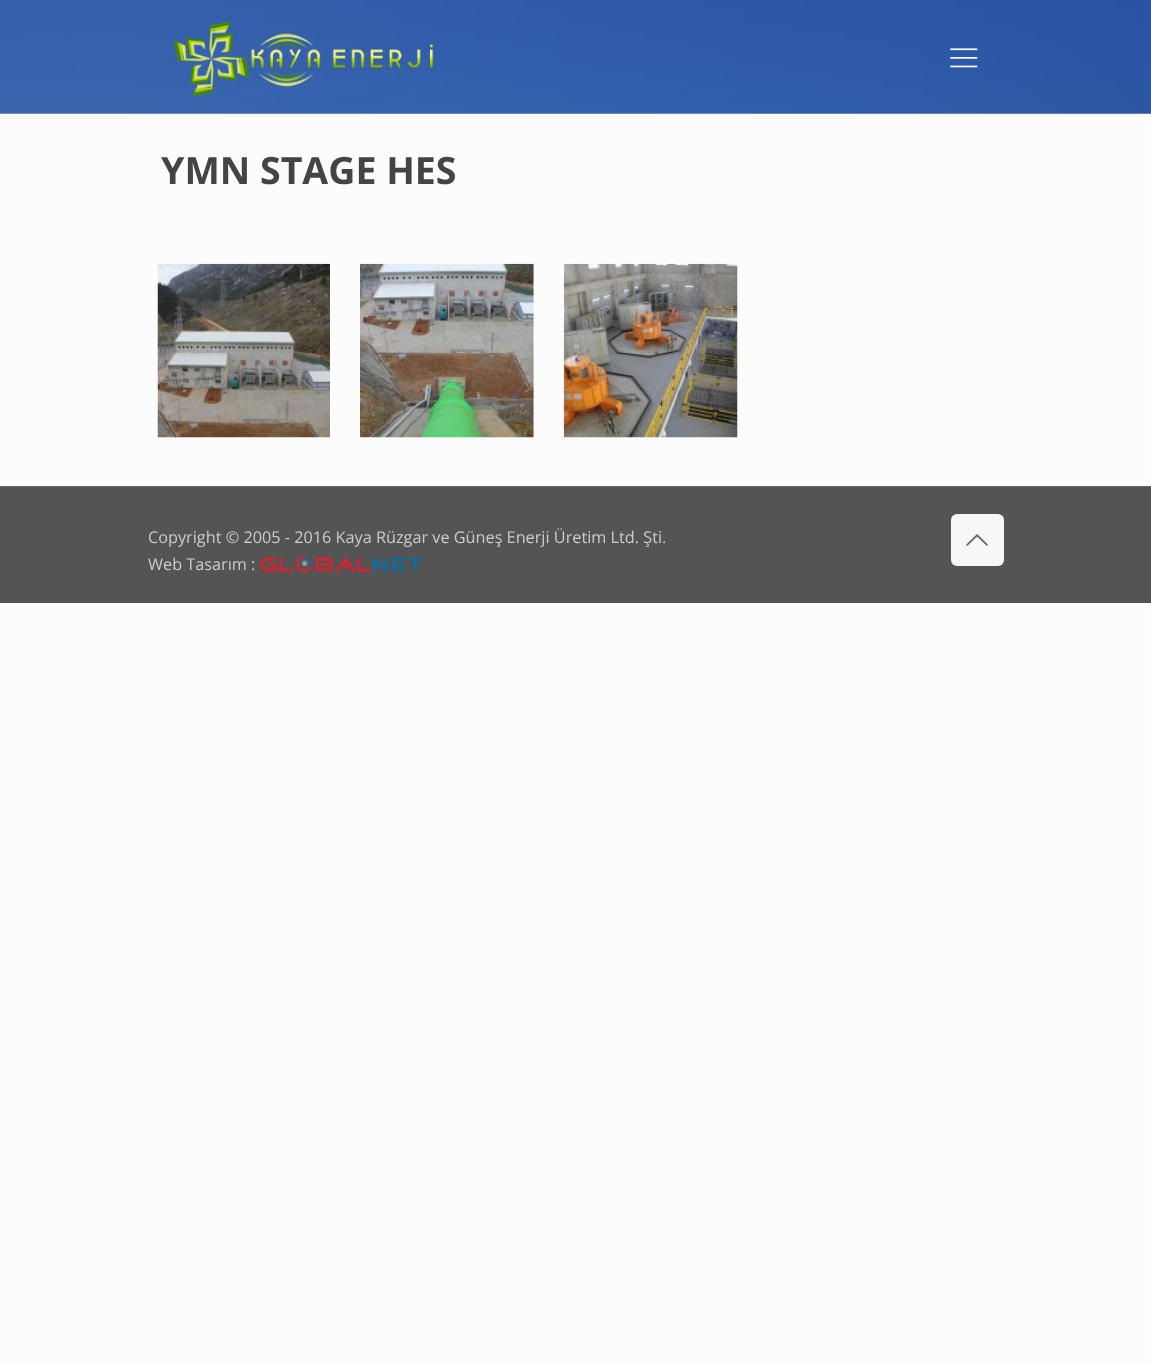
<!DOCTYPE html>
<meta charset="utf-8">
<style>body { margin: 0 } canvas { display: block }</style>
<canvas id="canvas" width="1151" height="1364"></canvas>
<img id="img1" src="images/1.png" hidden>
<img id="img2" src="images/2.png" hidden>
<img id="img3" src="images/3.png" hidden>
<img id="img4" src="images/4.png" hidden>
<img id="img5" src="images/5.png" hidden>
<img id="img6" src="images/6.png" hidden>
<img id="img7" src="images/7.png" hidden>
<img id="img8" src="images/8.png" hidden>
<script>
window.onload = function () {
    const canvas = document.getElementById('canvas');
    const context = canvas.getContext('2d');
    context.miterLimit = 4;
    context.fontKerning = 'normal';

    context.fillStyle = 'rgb(252, 252, 252)';
    context.fillRect(0, 0, 1151, 1364);
    context.drawImage(document.getElementById('img1'), 0, 0, 1151, 114);
    context.drawImage(document.getElementById('img2'), 173, 21, 261, 76);
    context.drawImage(document.getElementById('img3'), 950, 48, 28, 20);
    context.drawImage(document.getElementById('img4'), 157, 263, 173, 175);
    context.drawImage(document.getElementById('img5'), 360, 263, 174, 175);
    context.drawImage(document.getElementById('img6'), 563, 263, 175, 175);
    context.fillStyle = 'rgb(84, 84, 84)';
    context.fillRect(0, 487, 1151, 116);
    context.fillStyle = 'rgb(101, 101, 101)';
    context.fillRect(0, 486, 1151, 1);
    context.drawImage(document.getElementById('img7'), 260, 555, 163, 18);
    context.fillStyle = 'rgb(247, 247, 247)';
    context.beginPath();
    context.roundRect(951, 514, 53, 52, 6);
    context.fill();
    context.drawImage(document.getElementById('img8'), 966, 534, 22, 12);
    context.font = 'bold 37.5px Open Sans';
    context.fillStyle = 'rgb(68, 68, 68)';
    context.fillText('YMN STAGE HES', 161, 184);
    context.font = '16.25px Open Sans';
    context.fillStyle = 'rgb(204, 204, 204)';
    context.fillText('Copyright © 2005 - 2016 Kaya Rüzgar ve Güneş Enerji Üretim Ltd. Şti.', 148, 543);
    context.fillText('Web Tasarım :', 148, 570);
};
</script>
